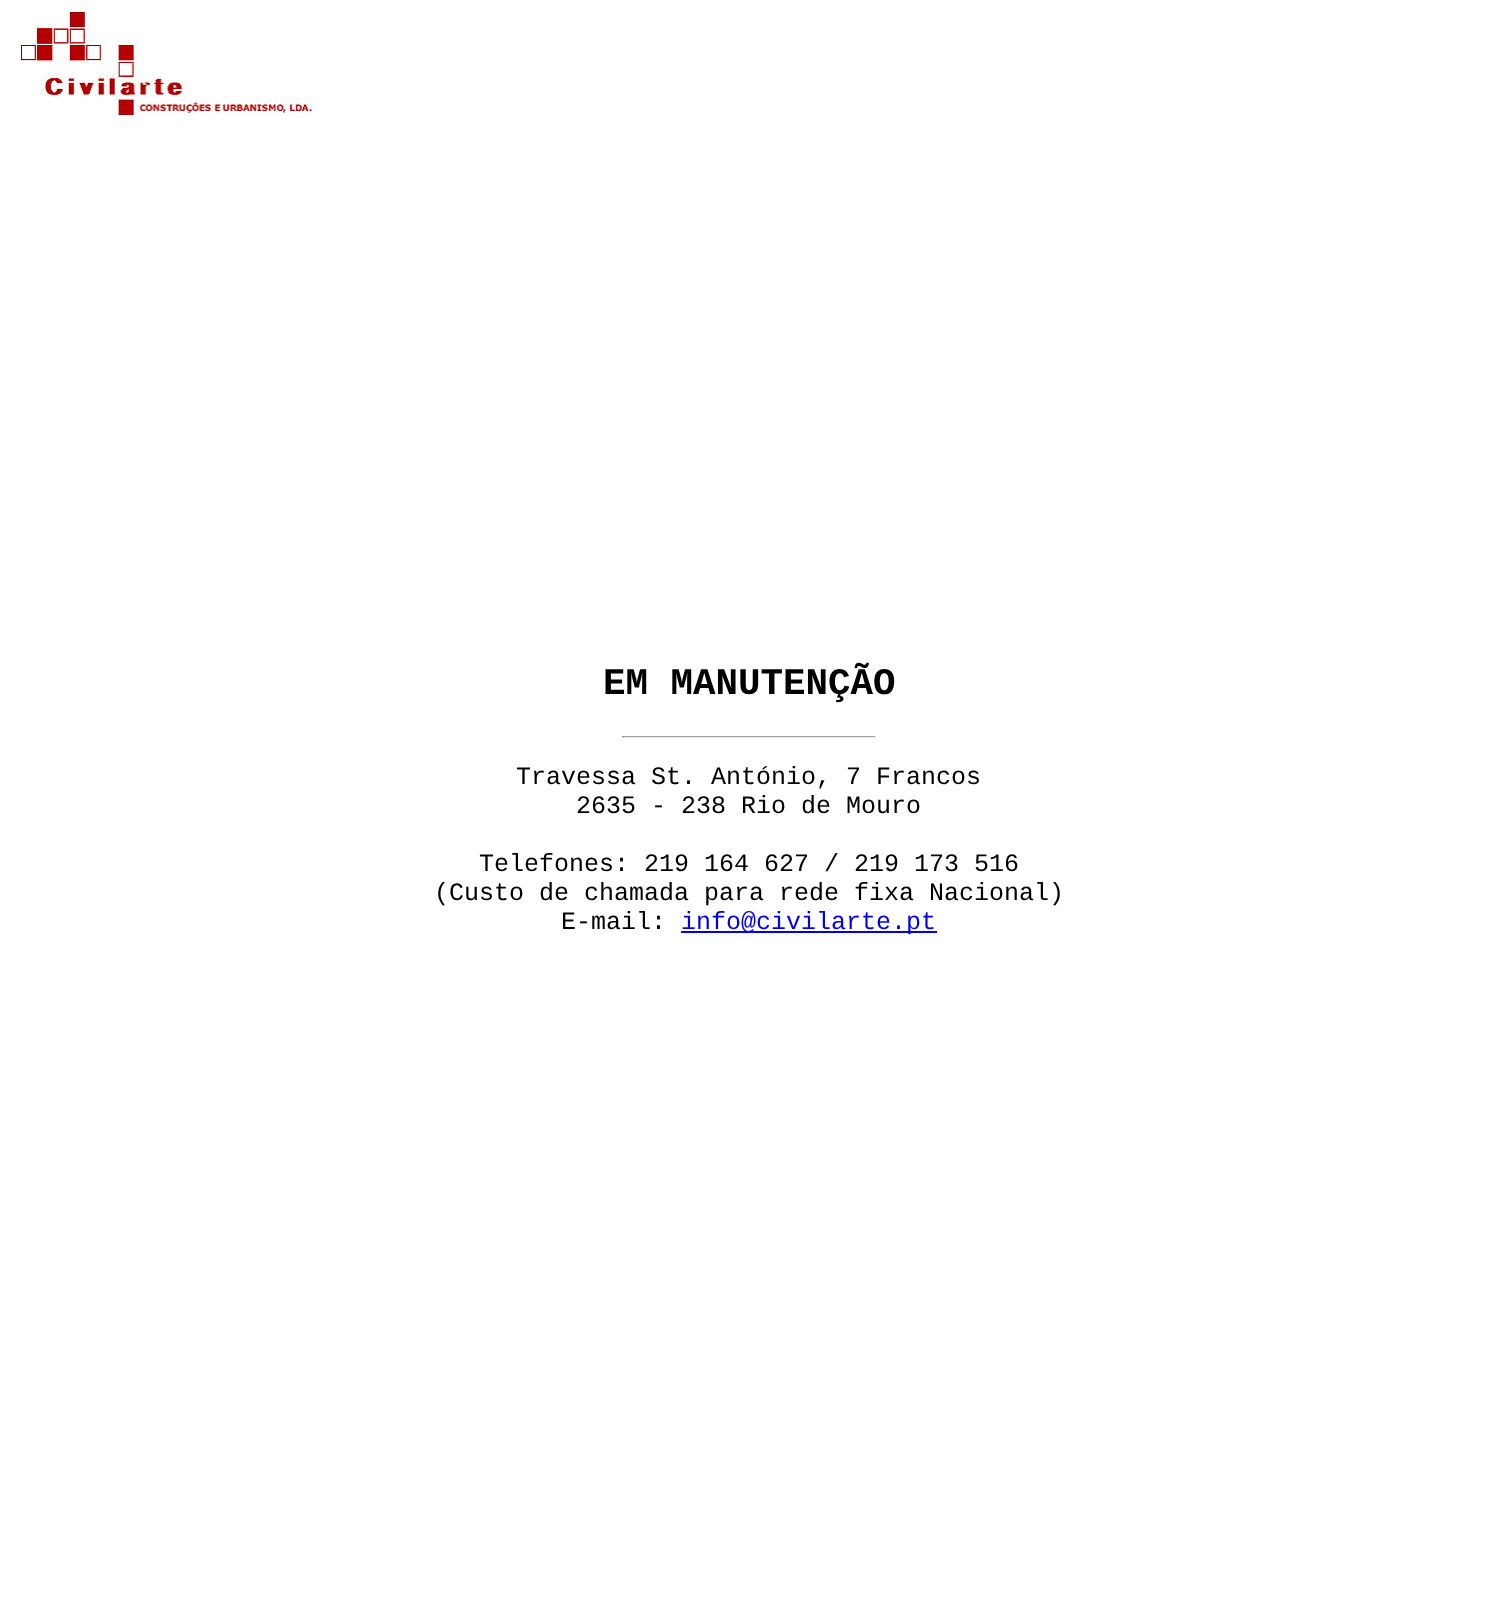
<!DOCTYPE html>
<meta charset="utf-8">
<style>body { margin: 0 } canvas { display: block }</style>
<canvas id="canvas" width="1498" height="1624"></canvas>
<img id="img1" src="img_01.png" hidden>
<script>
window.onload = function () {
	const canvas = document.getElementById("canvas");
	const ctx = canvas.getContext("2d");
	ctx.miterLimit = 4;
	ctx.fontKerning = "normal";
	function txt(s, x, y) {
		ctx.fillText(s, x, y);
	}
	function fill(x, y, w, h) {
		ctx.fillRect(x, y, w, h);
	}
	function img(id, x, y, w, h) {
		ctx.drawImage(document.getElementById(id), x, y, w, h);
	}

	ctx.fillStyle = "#FFFFFF";
	fill(0, 0, 1498, 1624);
	img("img1", 18, 8, 295, 112);
	ctx.fillStyle = "#9F9F9F";
	fill(622, 736, 254, 1);
	ctx.fillStyle = "#EEEEEE";
	fill(875, 736, 1, 2);
	fill(622, 737, 254, 1);
	ctx.fillStyle = "#9F9F9F";
	fill(622, 736, 1, 2);
	ctx.fillStyle = "#0000EE";
	fill(681, 931, 256, 2);
	ctx.font = "bold 37.5px Liberation Mono";
	ctx.fillStyle = "#000000";
	txt("EM MANUTENÇÃO", 603, 694);
	ctx.font = "25px Liberation Mono";
	txt("Travessa St. António, 7 Francos", 516, 784);
	txt("2635 - 238 Rio de Mouro", 576, 813);
	txt("Telefones: 219 164 627 / 219 173 516", 479, 871);
	txt("(Custo de chamada para rede fixa Nacional)", 434, 900);
	txt("E-mail:", 561, 929);
	ctx.fillStyle = "#0000EE";
	txt("info@civilarte.pt", 681, 929);
};
</script>
